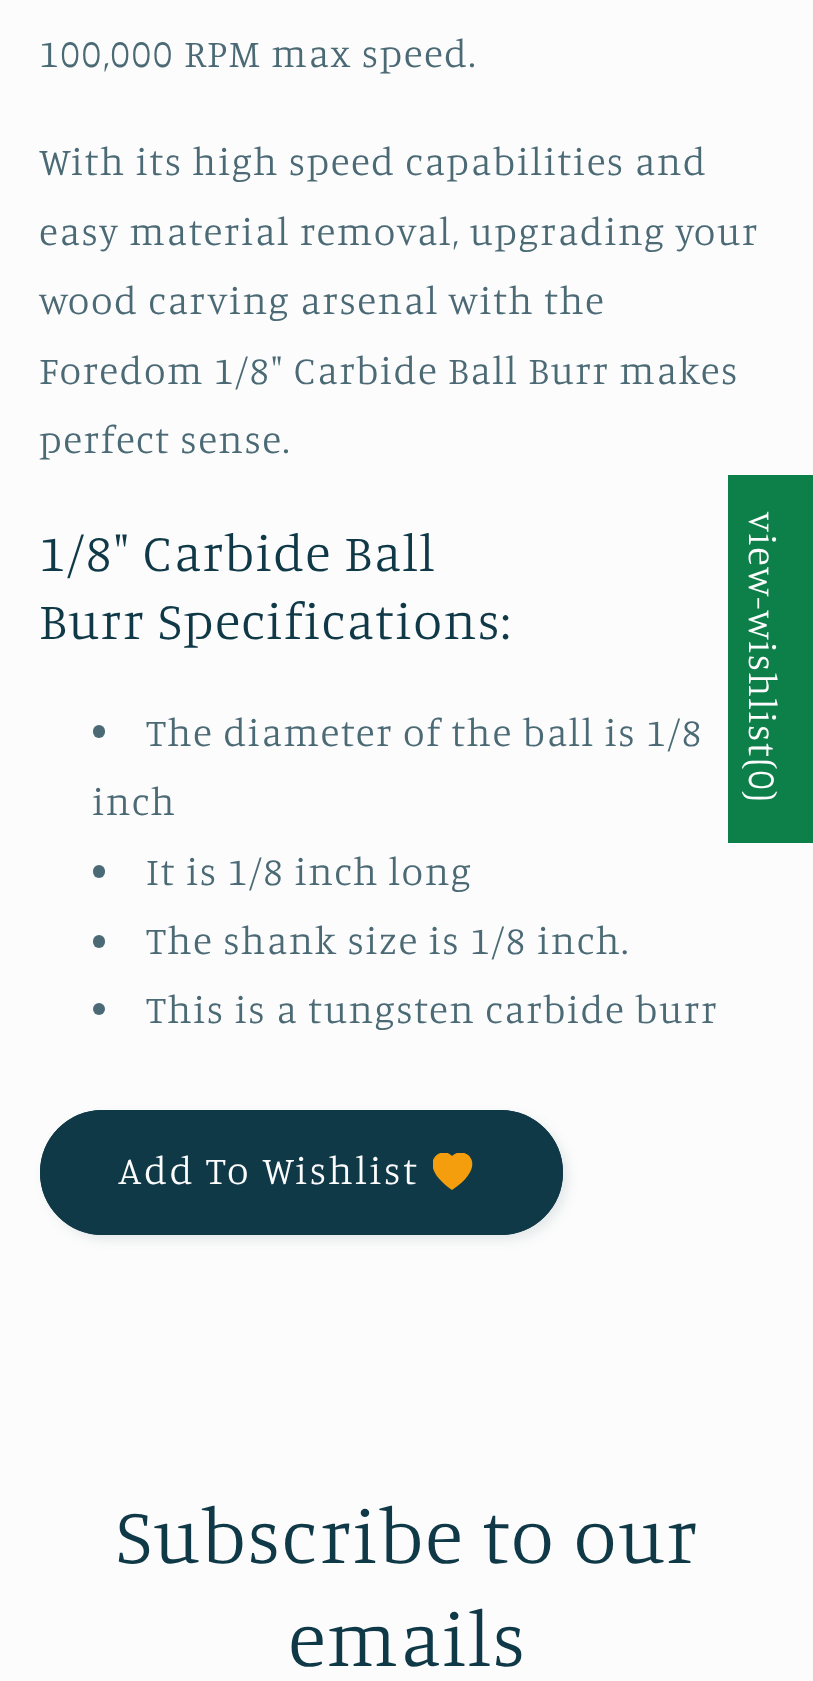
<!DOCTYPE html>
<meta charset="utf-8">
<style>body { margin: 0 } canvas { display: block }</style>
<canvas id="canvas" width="813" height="1681"></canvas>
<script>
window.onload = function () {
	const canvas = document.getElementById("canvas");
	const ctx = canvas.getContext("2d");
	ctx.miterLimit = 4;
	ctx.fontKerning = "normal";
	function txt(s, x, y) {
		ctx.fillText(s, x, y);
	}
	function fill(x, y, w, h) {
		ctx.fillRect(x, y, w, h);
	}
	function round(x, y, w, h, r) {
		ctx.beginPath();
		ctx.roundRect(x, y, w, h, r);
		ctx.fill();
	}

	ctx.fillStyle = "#FCFCFC";
	fill(0, 0, 813, 1681);
	ctx.fillStyle = "#4B6A75";
	round(93, 725, 12, 13, 6);
	round(93, 865, 12, 13, 6);
	round(93, 935, 12, 13, 6);
	ctx.beginPath();
	ctx.arc(99, 1009, 6, 0, Math.PI * 2);
	ctx.fill();
	ctx.fillStyle = "rgba(16, 57, 72, 0.1)";
	ctx.filter = "blur(6px)";
	ctx.beginPath();
	ctx.roundRect(45, 1115, 523, 125, 62.5);
	ctx.fill();
	ctx.filter = "none";
	ctx.fillStyle = "#103948";
	round(40, 1110, 523, 125, 62.5);
	ctx.save();
	ctx.beginPath();
	ctx.rect(433, 1153, 40, 40);
	ctx.clip();
	ctx.fillStyle = "#F49E0E";
	ctx.beginPath();
	ctx.moveTo(452, 1156);
	ctx.bezierCurveTo(464, 1144, 491, 1164, 452, 1190);
	ctx.bezierCurveTo(414, 1164, 441, 1144, 452, 1156);
	ctx.fill("evenodd");
	ctx.restore();
	ctx.beginPath();
	ctx.roundRect(41.5, 1111.5, 520, 122, 61);
	ctx.strokeStyle = "#103948";
	ctx.lineWidth = 3;
	ctx.stroke();
	ctx.fillStyle = "#0D7F49";
	fill(728, 475, 85, 368);
	ctx.letterSpacing = "1.55px";
	ctx.font = "300 39.4px Manuale";
	ctx.fillStyle = "#4B6A75";
	txt("100,000 RPM max speed.", 39, 67);
	txt("With its high speed capabilities and", 39, 175);
	txt("easy material removal, upgrading your", 39, 245);
	txt("wood carving arsenal with the", 39, 314);
	txt("Foredom 1/8\" Carbide Ball Burr makes", 39, 384);
	txt("perfect sense.", 39, 453);
	ctx.font = "300 52.5px Manuale";
	ctx.fillStyle = "#103948";
	txt("1/8\" Carbide Ball", 39, 571);
	txt("Burr Specifications:", 39, 639);
	ctx.font = "300 39.4px Manuale";
	ctx.fillStyle = "#4B6A75";
	txt("The diameter of the ball is 1/8", 146, 746);
	txt("inch", 92, 815);
	txt("It is 1/8 inch long", 146, 885);
	txt("The shank size is 1/8 inch.", 146, 954);
	txt("This is a tungsten carbide burr", 146, 1023);
	ctx.letterSpacing = "2.6px";
	ctx.fillStyle = "#FCFCFC";
	txt("Add To Wishlist", 118, 1184);
	ctx.letterSpacing = "1.55px";
	ctx.save();
	ctx.translate(749, 512);
	ctx.rotate(90 * Math.PI / 180);
	ctx.fillText("view-wishlist(0)", 0, 0);
	ctx.restore();
	ctx.font = "300 78.75px Manuale";
	ctx.fillStyle = "#103948";
	txt("Subscribe to our", 116, 1563);
	txt("emails", 288, 1666);
};
</script>
